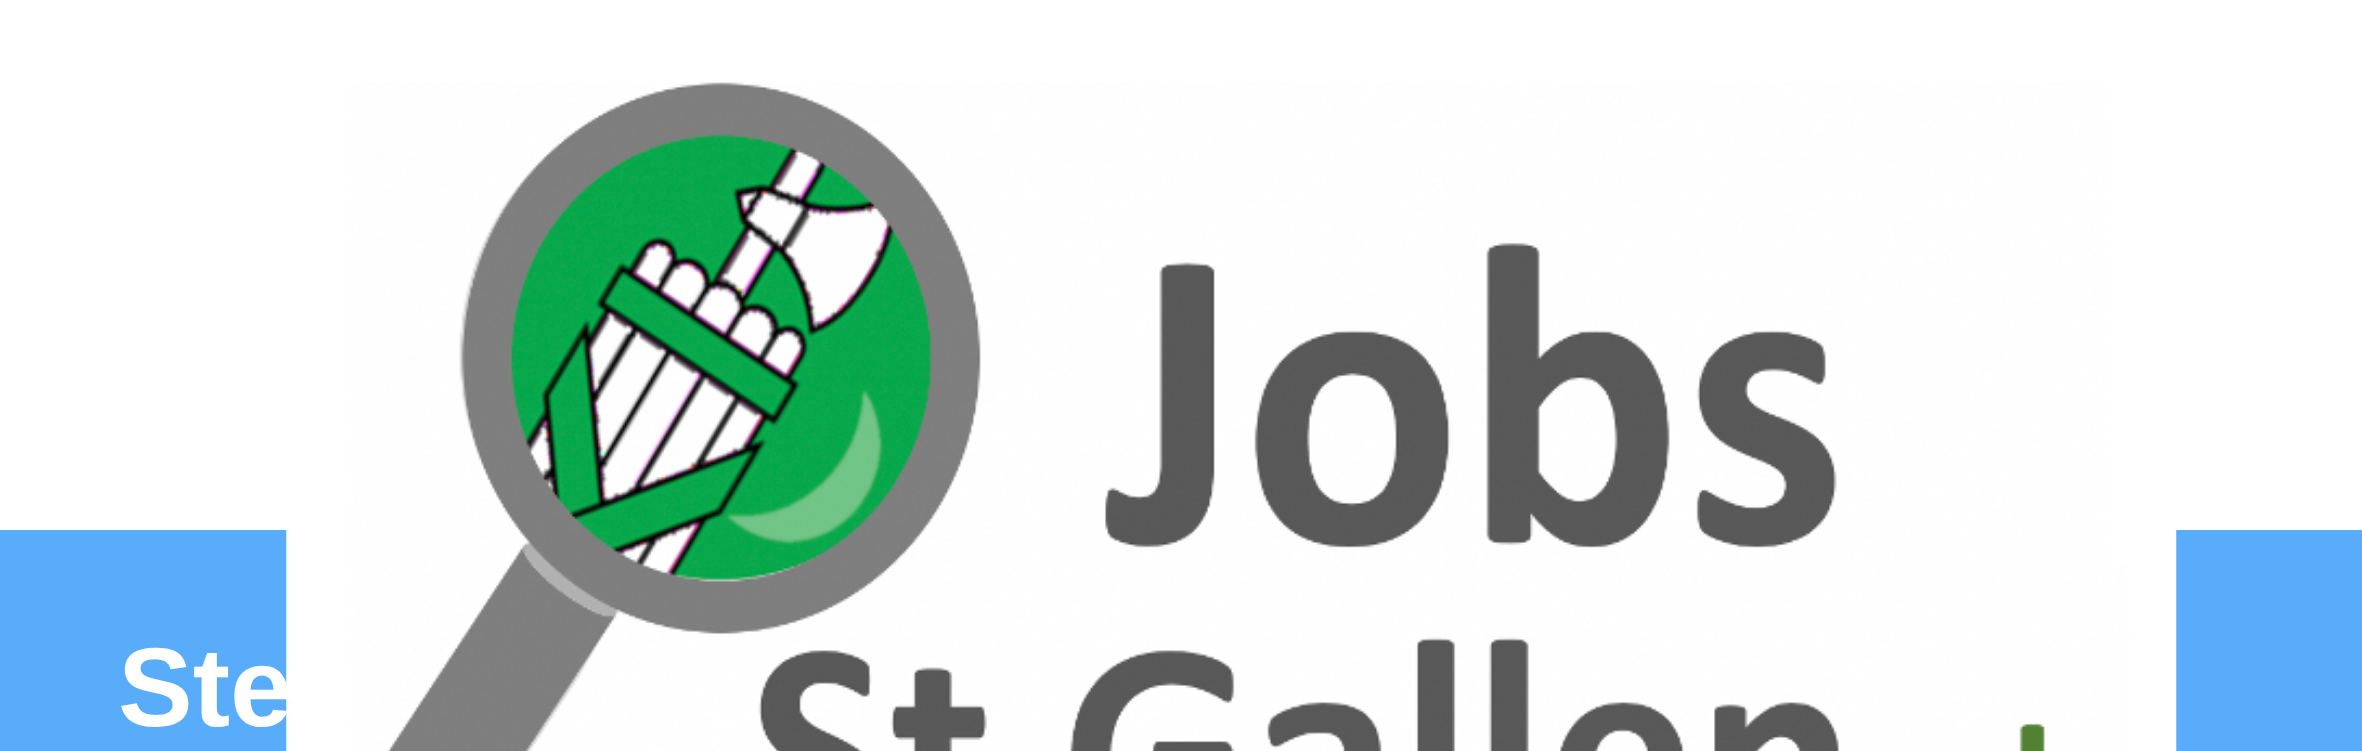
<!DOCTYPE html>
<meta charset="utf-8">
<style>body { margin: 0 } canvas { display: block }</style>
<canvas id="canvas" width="2362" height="751"></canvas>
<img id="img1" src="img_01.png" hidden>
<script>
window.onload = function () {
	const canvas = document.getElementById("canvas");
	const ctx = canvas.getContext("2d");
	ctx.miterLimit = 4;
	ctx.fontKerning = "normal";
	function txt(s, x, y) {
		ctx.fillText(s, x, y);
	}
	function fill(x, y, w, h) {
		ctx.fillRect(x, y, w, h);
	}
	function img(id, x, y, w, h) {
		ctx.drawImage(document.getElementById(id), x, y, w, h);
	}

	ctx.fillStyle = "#58ACFA";
	fill(0, 0, 2362, 751);
	ctx.fillStyle = "#FFFFFF";
	fill(0, 0, 2362, 530);
	img("img1", 286, 82, 1891, 669);
	ctx.font = "bold 112px Liberation Sans";
	txt("Ste", 118, 726);
};
</script>
